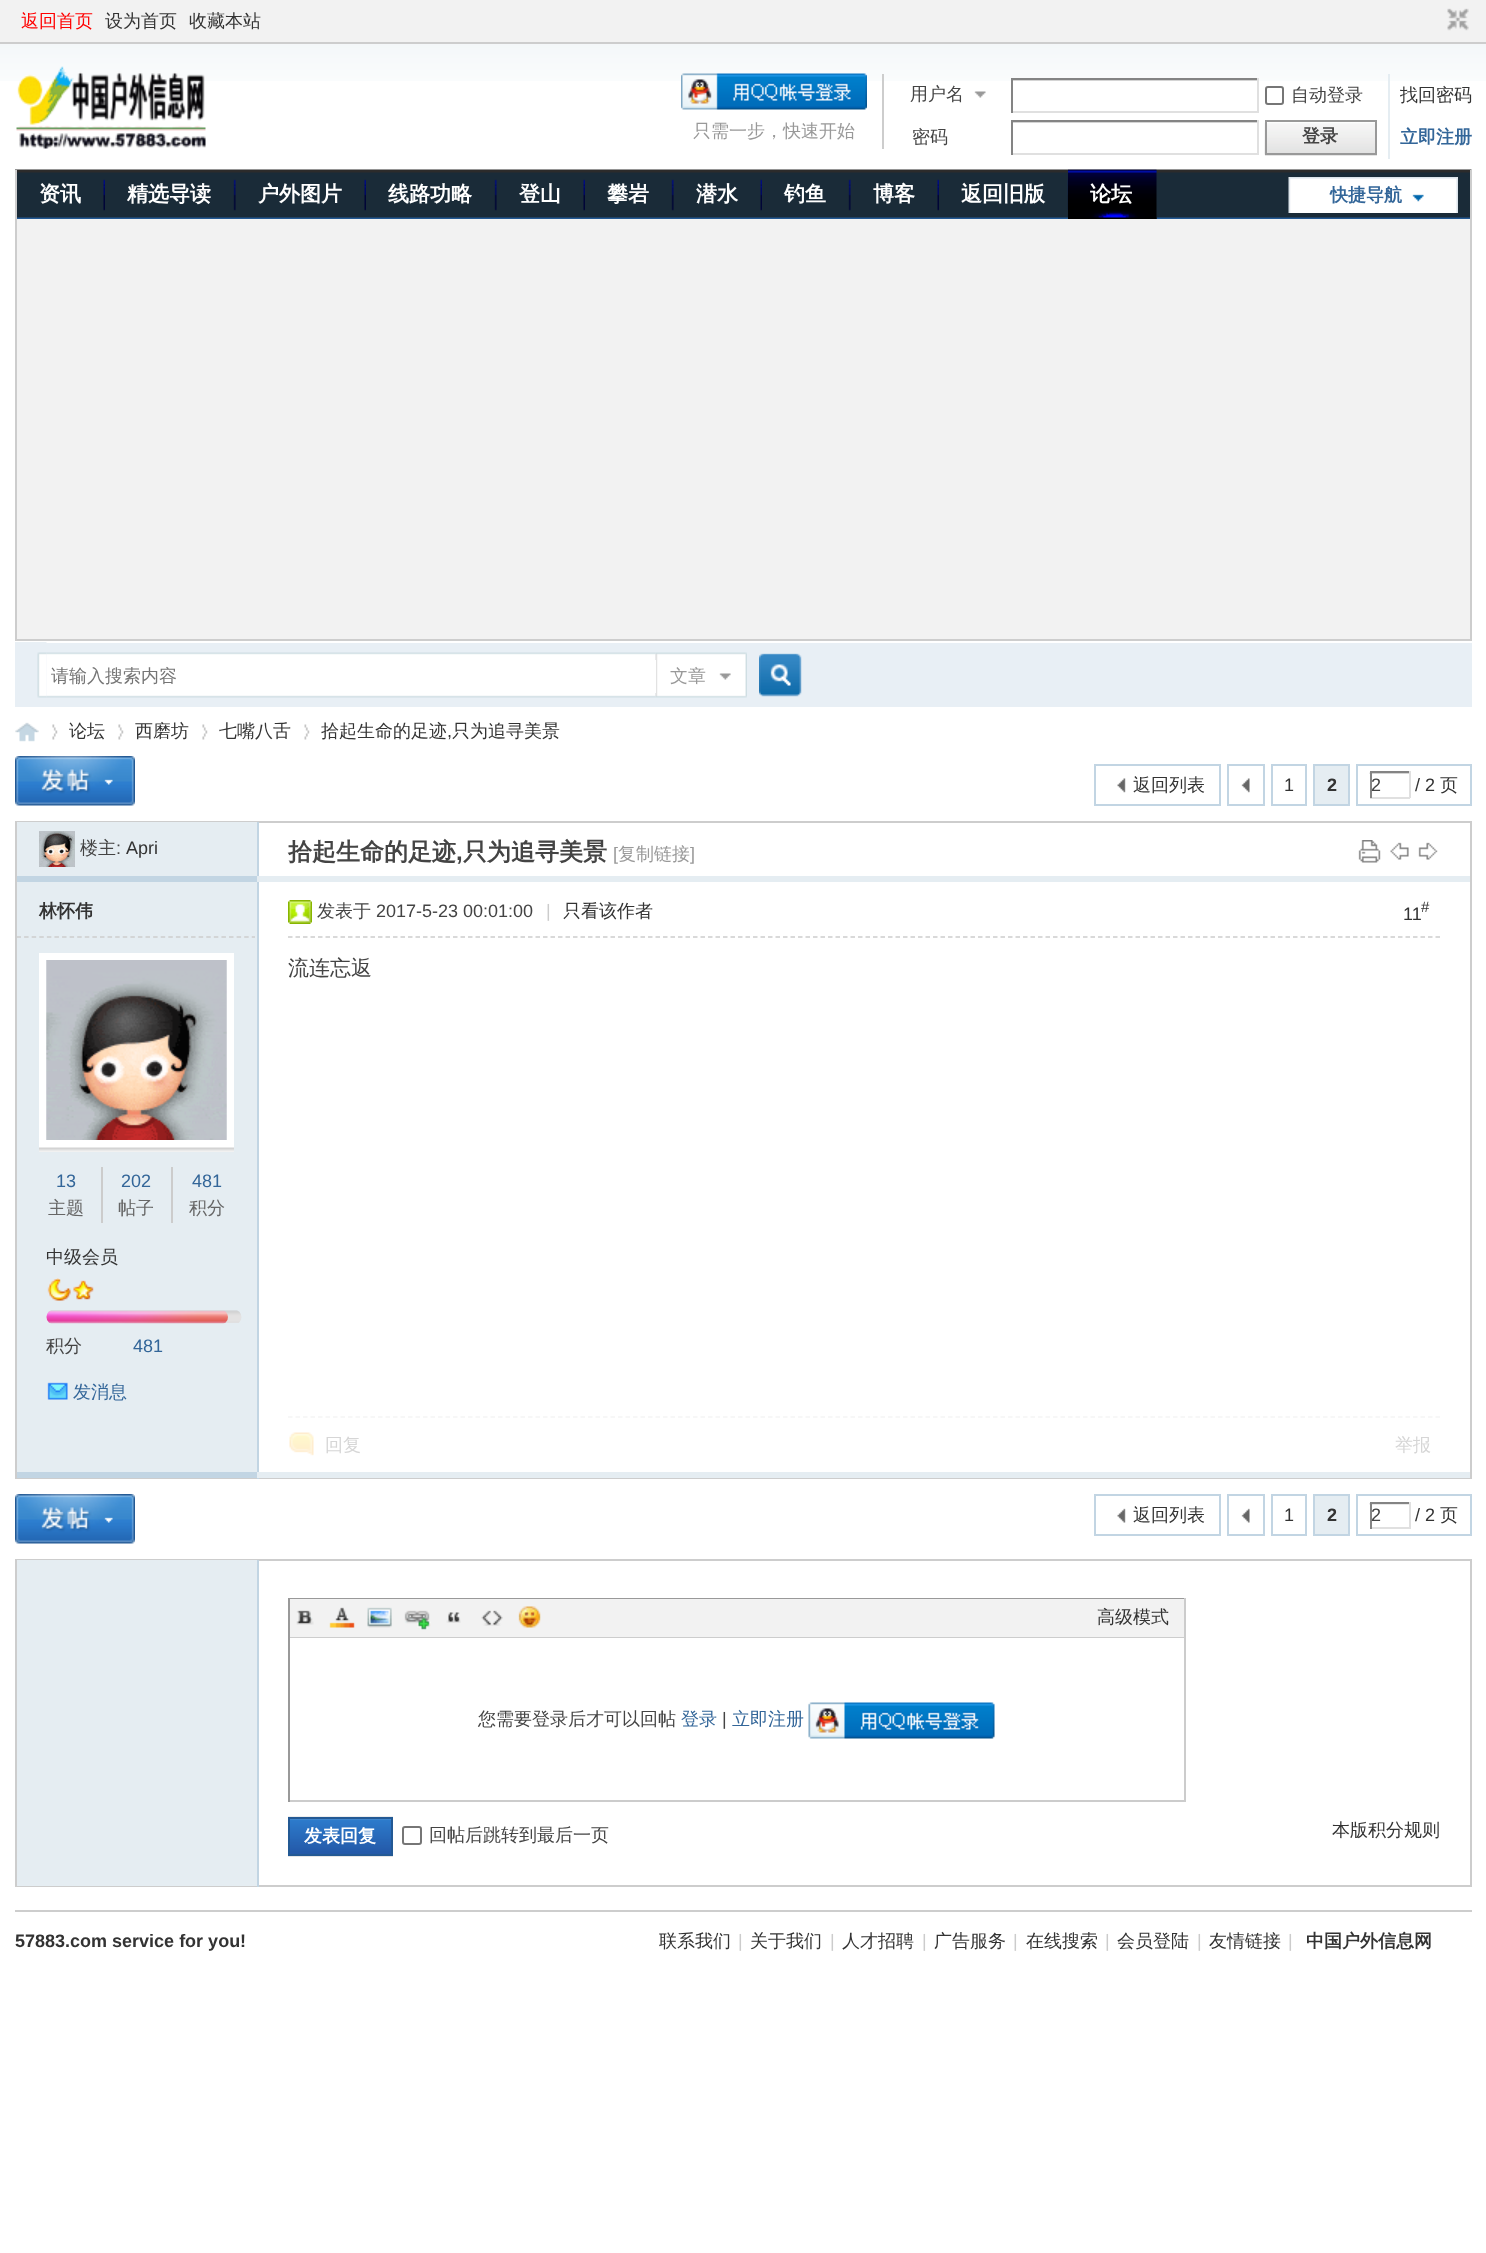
<!DOCTYPE html>
<meta charset="utf-8">
<style>body { margin: 0 } canvas { display: block }</style>
<canvas id="canvas" width="1486" height="2253"></canvas>
<img id="img1" src="img_01.png" hidden>
<img id="img2" src="img_02.png" hidden>
<img id="img3" src="img_03.png" hidden>
<img id="img4" src="img_04.png" hidden>
<img id="img5" src="img_05.png" hidden>
<img id="img6" src="img_06.png" hidden>
<img id="img7" src="img_07.png" hidden>
<img id="img8" src="img_08.png" hidden>
<img id="img9" src="img_09.png" hidden>
<img id="img10" src="img_10.png" hidden>
<img id="img11" src="img_11.png" hidden>
<img id="img12" src="img_12.png" hidden>
<img id="img13" src="img_13.png" hidden>
<img id="img14" src="img_14.png" hidden>
<img id="img15" src="img_15.png" hidden>
<img id="img16" src="img_16.png" hidden>
<img id="img17" src="img_17.png" hidden>
<img id="img18" src="img_18.png" hidden>
<img id="img19" src="img_19.png" hidden>
<img id="img20" src="img_20.png" hidden>
<img id="img21" src="img_21.png" hidden>
<img id="img22" src="img_22.png" hidden>
<img id="img23" src="img_23.png" hidden>
<img id="img24" src="img_24.png" hidden>
<img id="img25" src="img_25.png" hidden>
<img id="img26" src="img_26.png" hidden>
<img id="img27" src="img_27.png" hidden>
<img id="img28" src="img_28.png" hidden>
<img id="img29" src="img_29.png" hidden>
<img id="img30" src="img_30.png" hidden>
<img id="img31" src="img_31.png" hidden>
<img id="img32" src="img_32.png" hidden>
<img id="img33" src="img_33.png" hidden>
<img id="img34" src="img_34.png" hidden>
<img id="img35" src="img_35.png" hidden>
<img id="img36" src="img_36.png" hidden>
<img id="img37" src="img_37.png" hidden>
<img id="img38" src="img_38.png" hidden>
<img id="img39" src="img_39.png" hidden>
<img id="img40" src="img_40.png" hidden>
<img id="img41" src="img_41.png" hidden>
<img id="img42" src="img_42.png" hidden>
<img id="img43" src="img_43.png" hidden>
<img id="img44" src="img_44.png" hidden>
<img id="img45" src="img_45.png" hidden>
<img id="img46" src="img_46.png" hidden>
<img id="img47" src="img_47.png" hidden>
<img id="img48" src="img_48.png" hidden>
<img id="img49" src="img_49.png" hidden>
<img id="img50" src="img_50.png" hidden>
<script>
window.onload = function () {
	const canvas = document.getElementById("canvas");
	const ctx = canvas.getContext("2d");
	ctx.miterLimit = 4;
	ctx.fontKerning = "normal";
	function txt(s, x, y) {
		ctx.fillText(s, x, y);
	}
	function fill(x, y, w, h) {
		ctx.fillRect(x, y, w, h);
	}
	function img(id, x, y, w, h) {
		ctx.drawImage(document.getElementById(id), x, y, w, h);
	}

	ctx.fillStyle = "#FFFFFF";
	fill(0, 0, 1486, 2253);
	img("img1", 0, 44, 1486, 37);
	ctx.fillStyle = "#F2F2F2";
	fill(0, 0, 1486, 42);
	ctx.fillStyle = "#CDCDCD";
	fill(0, 42, 1486, 2);
	img("img2", 1447, 8, 22, 23);
	img("img3", 16, 66, 190, 83);
	fill(882, 74, 2, 75);
	img("img4", 681, 73, 186, 37);
	img("img5", 974, 91, 12, 7);
	img("img6", 1013, 80, 244, 1);
	ctx.fillStyle = "#848484";
	fill(1011, 78, 248, 2);
	ctx.fillStyle = "#E0E0E0";
	fill(1257, 78, 2, 35);
	fill(1011, 111, 248, 2);
	ctx.fillStyle = "#848484";
	fill(1011, 78, 2, 35);
	ctx.beginPath();
	ctx.roundRect(1266, 87, 17, 17, 2);
	ctx.strokeStyle = "#767676";
	ctx.lineWidth = 2;
	ctx.stroke();
	img("img6", 1013, 122, 244, 1);
	fill(1011, 120, 248, 2);
	ctx.fillStyle = "#E0E0E0";
	fill(1257, 120, 2, 35);
	fill(1011, 153, 248, 2);
	ctx.fillStyle = "#848484";
	fill(1011, 120, 2, 35);
	ctx.fillStyle = "#E5EDF2";
	fill(1388, 74, 2, 85);
	ctx.fillStyle = "#E5E5E5";
	fill(1265, 155, 112, 1);
	img("img7", 1264, 121, 111, 34);
	ctx.strokeStyle = "#999999";
	ctx.strokeRect(1266, 121, 110, 33);
	img("img8", 15, 169, 1457, 50);
	ctx.fillStyle = "#CDCDCD";
	fill(1470, 170, 2, 49);
	fill(15, 170, 2, 49);
	img("img9", 103, 179, 2, 32);
	img("img10", 233, 179, 3, 32);
	img("img9", 364, 179, 2, 32);
	img("img10", 494, 179, 3, 32);
	img("img9", 583, 179, 2, 32);
	img("img10", 671, 179, 3, 32);
	img("img11", 760, 179, 2, 32);
	img("img10", 848, 179, 3, 32);
	img("img9", 937, 179, 2, 32);
	img("img12", 1067, 180, 1, 30);
	ctx.fillStyle = "#1A2B38";
	fill(1156, 170, 1, 49);
	img("img13", 1068, 169, 89, 50);
	img("img14", 1288, 177, 170, 36);
	ctx.fillStyle = "#F2F2F2";
	fill(17, 219, 1453, 420);
	ctx.fillStyle = "#CDCDCD";
	fill(1470, 219, 2, 422);
	fill(15, 639, 1457, 2);
	fill(15, 219, 2, 422);
	ctx.fillStyle = "#E8EFF5";
	fill(15, 643, 1457, 64);
	img("img15", 15, 642, 32, 56);
	img("img16", 46, 652, 610, 46);
	img("img17", 655, 652, 92, 46);
	ctx.fillStyle = "#FFFFFF";
	fill(655, 660, 1, 33);
	img("img18", 759, 653, 43, 44);
	img("img19", 15, 722, 24, 20);
	img("img20", 52, 724, 6, 16);
	img("img20", 118, 724, 6, 16);
	img("img20", 202, 724, 6, 16);
	img("img21", 304, 724, 6, 16);
	img("img22", 15, 756, 120, 50);
	img("img23", 1117, 778, 9, 15);
	ctx.strokeStyle = "#C2D5E3";
	ctx.strokeRect(1095, 765, 125, 40);
	img("img24", 1241, 778, 9, 15);
	ctx.strokeRect(1228, 765, 36, 40);
	ctx.strokeRect(1272, 765, 34, 40);
	ctx.fillStyle = "#E5EDF2";
	ctx.beginPath();
	ctx.rect(1314, 765, 35, 40);
	ctx.fill();
	ctx.stroke();
	ctx.strokeRect(1357, 765, 114, 40);
	img("img25", 1369, 772, 40, 2);
	ctx.fillStyle = "#848484";
	fill(1370, 771, 40, 2);
	ctx.fillStyle = "#E0E0E0";
	fill(1409, 771, 2, 27);
	fill(1370, 797, 40, 2);
	ctx.fillStyle = "#848484";
	fill(1370, 771, 2, 27);
	ctx.strokeStyle = "#CDCDCD";
	ctx.strokeRect(16, 822, 1455, 656);
	ctx.fillStyle = "#C2D5E3";
	fill(257, 822, 2, 56);
	ctx.fillStyle = "#E5EDF2";
	fill(17, 822, 240, 54);
	img("img26", 39, 831, 36, 36);
	img("img27", 1358, 840, 23, 23);
	img("img28", 1390, 842, 19, 18);
	img("img29", 1418, 842, 20, 18);
	ctx.fillStyle = "#C2D5E3";
	fill(17, 876, 240, 6);
	ctx.fillStyle = "#E5EDF2";
	fill(257, 876, 1213, 6);
	ctx.fillStyle = "#C2D5E3";
	fill(257, 882, 2, 597);
	fill(17, 1472, 240, 6);
	ctx.fillStyle = "#E5EDF2";
	fill(257, 1472, 1213, 6);
	fill(17, 882, 240, 590);
	ctx.save();
	ctx.beginPath();
	ctx.rect(17, 882, 238, 534);
	ctx.clip();
	ctx.beginPath();
	ctx.moveTo(16.5, 937);
	ctx.lineTo(256.5, 937);
	ctx.lineWidth = 1.5;
	ctx.setLineDash([4.5, 3.09]);
	ctx.stroke();
	ctx.restore();
	ctx.fillStyle = "#FFFFFF";
	fill(39, 953, 195, 195);
	img("img30", 39, 960, 195, 192);
	img("img31", 46, 960, 181, 180);
	ctx.fillStyle = "#CCCCCC";
	fill(101, 1167, 2, 56);
	fill(171, 1167, 2, 56);
	img("img32", 47, 1278, 24, 23);
	img("img33", 73, 1280, 21, 20);
	img("img34", 46, 1310, 196, 13);
	img("img35", 46, 1310, 182, 14);
	img("img36", 47, 1382, 21, 18);
	ctx.beginPath();
	ctx.moveTo(288, 937);
	ctx.lineTo(1440, 937);
	ctx.lineWidth = 1.5;
	ctx.setLineDash([4.5, 3]);
	ctx.stroke();
	img("img37", 288, 900, 24, 24);
	ctx.beginPath();
	ctx.moveTo(288, 1417);
	ctx.lineTo(1440, 1417);
	ctx.strokeStyle = "#F5F5F5";
	ctx.stroke();
	img("img38", 289, 1432, 25, 24);
	img("img22", 15, 1494, 120, 50);
	img("img39", 1117, 1508, 9, 15);
	ctx.strokeStyle = "#C2D5E3";
	ctx.lineWidth = 2;
	ctx.setLineDash([]);
	ctx.strokeRect(1095, 1495, 125, 40);
	img("img40", 1241, 1508, 9, 15);
	ctx.strokeRect(1228, 1495, 36, 40);
	ctx.strokeRect(1272, 1495, 34, 40);
	ctx.fillStyle = "#E5EDF2";
	ctx.beginPath();
	ctx.rect(1314, 1495, 35, 40);
	ctx.fill();
	ctx.stroke();
	ctx.strokeRect(1357, 1495, 114, 40);
	img("img41", 1369, 1503, 40, 2);
	ctx.fillStyle = "#848484";
	fill(1370, 1502, 40, 2);
	ctx.fillStyle = "#E0E0E0";
	fill(1409, 1502, 2, 27);
	fill(1370, 1527, 40, 2);
	ctx.fillStyle = "#848484";
	fill(1370, 1502, 2, 27);
	ctx.strokeStyle = "#CDCDCD";
	ctx.strokeRect(16, 1560, 1455, 326);
	ctx.fillStyle = "#C2D5E3";
	fill(257, 1560, 2, 327);
	ctx.fillStyle = "#E5EDF2";
	fill(17, 1560, 240, 326);
	ctx.fillStyle = "#999999";
	fill(288, 1598, 897, 1);
	ctx.fillStyle = "#CCCCCC";
	fill(1184, 1598, 2, 204);
	fill(288, 1800, 897, 2);
	ctx.fillStyle = "#999999";
	fill(288, 1598, 2, 204);
	ctx.fillStyle = "#F2F2F2";
	fill(290, 1599, 894, 38);
	ctx.fillStyle = "#CDCDCD";
	fill(290, 1637, 894, 1);
	img("img42", 296, 1610, 18, 15);
	img("img43", 329, 1607, 26, 21);
	img("img44", 367, 1607, 25, 21);
	img("img45", 404, 1610, 27, 20);
	img("img46", 446, 1612, 15, 11);
	img("img47", 481, 1610, 22, 16);
	img("img48", 518, 1606, 23, 22);
	img("img49", 808, 1702, 187, 37);
	ctx.fillStyle = "#E5E5E5";
	fill(288, 1856, 105, 1);
	img("img50", 288, 1816, 105, 38);
	ctx.strokeStyle = "#235994";
	ctx.strokeRect(289, 1818, 103, 37);
	ctx.beginPath();
	ctx.roundRect(403, 1827, 18, 17, 2);
	ctx.strokeStyle = "#767676";
	ctx.stroke();
	ctx.fillStyle = "#CDCDCD";
	fill(15, 1910, 1457, 2);
	ctx.font = "500 18px WenQuanYi Zen Hei";
	ctx.fillStyle = "#FF0000";
	txt("返回首页", 21, 27);
	ctx.fillStyle = "#333333";
	txt("设为首页", 105, 27);
	txt("收藏本站", 189, 27);
	ctx.fillStyle = "#999999";
	txt("只需一步，快速开始", 693, 137);
	ctx.fillStyle = "#444444";
	txt("用户名", 910, 100);
	txt("自动登录", 1291, 101);
	ctx.fillStyle = "#333333";
	txt("找回密码", 1400, 101);
	ctx.fillStyle = "#444444";
	txt("密码", 912, 143);
	ctx.font = "bold 18px WenQuanYi Zen Hei";
	txt("登录", 1302, 142);
	ctx.fillStyle = "#336699";
	txt("立即注册", 1400, 143);
	ctx.font = "bold 21px WenQuanYi Zen Hei";
	ctx.fillStyle = "#FFFFFF";
	txt("资讯", 39, 201);
	txt("精选导读", 127, 201);
	txt("户外图片", 258, 201);
	txt("线路功略", 388, 201);
	txt("登山", 519, 201);
	txt("攀岩", 607, 201);
	txt("潜水", 696, 201);
	txt("钓鱼", 784, 201);
	txt("博客", 873, 201);
	txt("返回旧版", 961, 201);
	txt("论坛", 1090, 201);
	ctx.font = "bold 18px WenQuanYi Zen Hei";
	ctx.fillStyle = "#336699";
	txt("快捷导航", 1330, 201);
	ctx.font = "500 18px WenQuanYi Zen Hei";
	ctx.fillStyle = "#757575";
	txt("请输入搜索内容", 51, 682);
	ctx.fillStyle = "#999999";
	txt("文章", 670, 682);
	ctx.fillStyle = "#333333";
	txt("论坛", 69, 737);
	txt("西磨坊", 135, 737);
	txt("七嘴八舌", 219, 737);
	txt("拾起生命的足迹", 321, 737);
	ctx.font = "18px Liberation Sans";
	txt(",", 447, 737);
	ctx.font = "500 18px WenQuanYi Zen Hei";
	txt("只为追寻美景", 452, 737);
	txt("返回列表", 1133, 791);
	ctx.font = "18px Liberation Sans";
	txt("1", 1284, 791);
	ctx.font = "bold 18px Liberation Sans";
	txt("2", 1327, 791);
	ctx.font = "18px Liberation Sans";
	ctx.fillStyle = "#444444";
	txt("2", 1371, 791);
	ctx.fillStyle = "#333333";
	txt("/ 2", 1415, 791);
	ctx.font = "500 18px WenQuanYi Zen Hei";
	txt("页", 1440, 791);
	ctx.fillStyle = "#444444";
	txt("楼主", 80, 854);
	ctx.font = "18px Liberation Sans";
	txt(":", 116, 854);
	ctx.fillStyle = "#333333";
	txt("Apri", 126, 854);
	ctx.font = "bold 24px WenQuanYi Zen Hei";
	ctx.fillStyle = "#444444";
	txt("拾起生命的足迹", 288, 860);
	ctx.font = "bold 24px Liberation Sans";
	txt(",", 456, 860);
	ctx.font = "bold 24px WenQuanYi Zen Hei";
	txt("只为追寻美景", 463, 860);
	ctx.font = "18px Liberation Sans";
	ctx.fillStyle = "#999999";
	txt("[", 613, 860);
	ctx.font = "500 18px WenQuanYi Zen Hei";
	txt("复制链接", 618, 860);
	ctx.font = "18px Liberation Sans";
	txt("]", 690, 860);
	ctx.font = "bold 18px WenQuanYi Zen Hei";
	ctx.fillStyle = "#333333";
	txt("林怀伟", 39, 917);
	ctx.font = "18px Liberation Sans";
	ctx.fillStyle = "#336699";
	txt("13", 56, 1187);
	ctx.font = "500 18px WenQuanYi Zen Hei";
	ctx.fillStyle = "#666666";
	txt("主题", 48, 1214);
	ctx.font = "18px Liberation Sans";
	ctx.fillStyle = "#336699";
	txt("202", 121, 1187);
	ctx.font = "500 18px WenQuanYi Zen Hei";
	ctx.fillStyle = "#666666";
	txt("帖子", 118, 1214);
	ctx.font = "18px Liberation Sans";
	ctx.fillStyle = "#336699";
	txt("481", 192, 1187);
	ctx.font = "500 18px WenQuanYi Zen Hei";
	ctx.fillStyle = "#666666";
	txt("积分", 189, 1214);
	ctx.fillStyle = "#333333";
	txt("中级会员", 46, 1263);
	ctx.fillStyle = "#444444";
	txt("积分", 46, 1352);
	ctx.font = "18px Liberation Sans";
	ctx.fillStyle = "#336699";
	txt("481", 133, 1352);
	ctx.font = "500 18px WenQuanYi Zen Hei";
	txt("发消息", 73, 1398);
	ctx.fillStyle = "#444444";
	txt("发表于", 317, 917);
	ctx.font = "18px Liberation Sans";
	txt("2017-5-23 00:01:00", 376, 917);
	ctx.fillStyle = "#CCCCCC";
	txt("|", 546, 917);
	ctx.font = "500 18px WenQuanYi Zen Hei";
	ctx.fillStyle = "#333333";
	txt("只看该作者", 563, 917);
	ctx.font = "18px Liberation Sans";
	txt("11", 1403, 920);
	ctx.font = "15px Liberation Sans";
	txt("#", 1421, 912);
	ctx.font = "500 21px WenQuanYi Zen Hei";
	ctx.fillStyle = "#444444";
	txt("流连忘返", 288, 975);
	ctx.font = "500 18px WenQuanYi Zen Hei";
	ctx.fillStyle = "#D6D6D6";
	txt("回复", 325, 1451);
	txt("举报", 1395, 1451);
	ctx.fillStyle = "#333333";
	txt("返回列表", 1133, 1521);
	ctx.font = "18px Liberation Sans";
	txt("1", 1284, 1521);
	ctx.font = "bold 18px Liberation Sans";
	txt("2", 1327, 1521);
	ctx.font = "18px Liberation Sans";
	ctx.fillStyle = "#444444";
	txt("2", 1371, 1521);
	ctx.fillStyle = "#333333";
	txt("/ 2", 1415, 1521);
	ctx.font = "500 18px WenQuanYi Zen Hei";
	txt("页", 1440, 1521);
	txt("高级模式", 1097, 1623);
	ctx.fillStyle = "#444444";
	txt("您需要登录后才可以回帖", 478, 1725);
	ctx.fillStyle = "#336699";
	txt("登录", 681, 1725);
	ctx.font = "18px Liberation Sans";
	ctx.fillStyle = "#444444";
	txt("|", 722, 1725);
	ctx.font = "500 18px WenQuanYi Zen Hei";
	ctx.fillStyle = "#336699";
	txt("立即注册", 732, 1725);
	ctx.font = "bold 18px WenQuanYi Zen Hei";
	ctx.fillStyle = "#FFFFFF";
	txt("发表回复", 304, 1842);
	ctx.font = "500 18px WenQuanYi Zen Hei";
	ctx.fillStyle = "#444444";
	txt("回帖后跳转到最后一页", 429, 1841);
	ctx.fillStyle = "#333333";
	txt("本版积分规则", 1332, 1836);
	ctx.font = "bold 18px Liberation Sans";
	txt("57883.com service for you!", 15, 1947);
	ctx.font = "500 18px WenQuanYi Zen Hei";
	txt("联系我们", 659, 1947);
	ctx.font = "18px Liberation Sans";
	ctx.fillStyle = "#CCCCCC";
	txt("|", 738, 1947);
	ctx.font = "500 18px WenQuanYi Zen Hei";
	ctx.fillStyle = "#333333";
	txt("关于我们", 750, 1947);
	ctx.font = "18px Liberation Sans";
	ctx.fillStyle = "#CCCCCC";
	txt("|", 830, 1947);
	ctx.font = "500 18px WenQuanYi Zen Hei";
	ctx.fillStyle = "#333333";
	txt("人才招聘", 842, 1947);
	ctx.font = "18px Liberation Sans";
	ctx.fillStyle = "#CCCCCC";
	txt("|", 922, 1947);
	ctx.font = "500 18px WenQuanYi Zen Hei";
	ctx.fillStyle = "#333333";
	txt("广告服务", 934, 1947);
	ctx.font = "18px Liberation Sans";
	ctx.fillStyle = "#CCCCCC";
	txt("|", 1013, 1947);
	ctx.font = "500 18px WenQuanYi Zen Hei";
	ctx.fillStyle = "#333333";
	txt("在线搜索", 1026, 1947);
	ctx.font = "18px Liberation Sans";
	ctx.fillStyle = "#CCCCCC";
	txt("|", 1105, 1947);
	ctx.font = "500 18px WenQuanYi Zen Hei";
	ctx.fillStyle = "#333333";
	txt("会员登陆", 1117, 1947);
	ctx.font = "18px Liberation Sans";
	ctx.fillStyle = "#CCCCCC";
	txt("|", 1197, 1947);
	ctx.font = "500 18px WenQuanYi Zen Hei";
	ctx.fillStyle = "#333333";
	txt("友情链接", 1209, 1947);
	ctx.font = "18px Liberation Sans";
	ctx.fillStyle = "#CCCCCC";
	txt("|", 1288, 1947);
	ctx.font = "bold 18px WenQuanYi Zen Hei";
	ctx.fillStyle = "#333333";
	txt("中国户外信息网", 1306, 1947);
};
</script>
